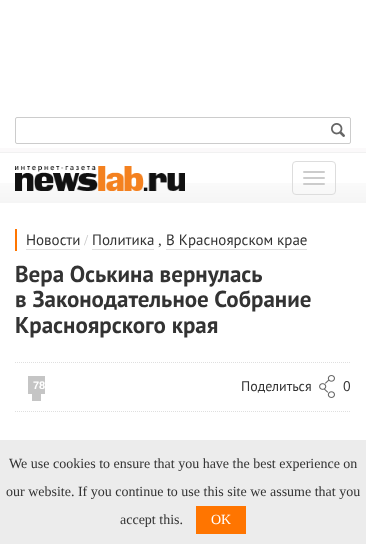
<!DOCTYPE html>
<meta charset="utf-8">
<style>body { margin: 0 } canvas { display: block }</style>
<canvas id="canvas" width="366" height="544"></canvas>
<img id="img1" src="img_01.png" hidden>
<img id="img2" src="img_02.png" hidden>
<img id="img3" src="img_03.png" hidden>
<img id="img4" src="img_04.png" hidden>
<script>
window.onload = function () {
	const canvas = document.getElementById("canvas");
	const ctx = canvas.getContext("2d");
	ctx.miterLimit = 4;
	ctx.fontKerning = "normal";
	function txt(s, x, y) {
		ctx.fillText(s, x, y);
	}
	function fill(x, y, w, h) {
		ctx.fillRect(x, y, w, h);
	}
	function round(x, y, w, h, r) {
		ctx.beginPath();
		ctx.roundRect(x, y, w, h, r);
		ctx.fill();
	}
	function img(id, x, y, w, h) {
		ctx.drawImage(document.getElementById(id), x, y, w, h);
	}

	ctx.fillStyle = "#FFFFFF";
	fill(0, 0, 366, 544);
	ctx.fillStyle = "#FBF9FA";
	fill(0, 148, 366, 4);
	ctx.beginPath();
	ctx.roundRect(15.5, 117.5, 335, 26, 1.5);
	ctx.strokeStyle = "#CCCCCC";
	ctx.stroke();
	img("img1", 331, 123, 14, 14);
	img("img2", 0, 183, 366, 20);
	ctx.fillStyle = "#F1F1F1";
	fill(0, 152, 366, 1);
	img("img3", 15, 166, 170, 25);
	ctx.beginPath();
	ctx.roundRect(292.5, 161.5, 43, 33, 3.5);
	ctx.strokeStyle = "#DDDDDD";
	ctx.stroke();
	ctx.fillStyle = "#CCCCCC";
	round(303, 171, 22, 2, 1);
	round(303, 177, 22, 2, 1);
	round(303, 183, 22, 2, 1);
	ctx.fillStyle = "#FF7500";
	fill(15, 229, 2, 22);
	ctx.fillStyle = "#E0E0E0";
	fill(26, 249, 54, 1);
	fill(92, 249, 62, 1);
	fill(166, 249, 141, 1);
	ctx.beginPath();
	ctx.moveTo(15, 362.5);
	ctx.lineTo(351, 362.5);
	ctx.strokeStyle = "#DFDFDF";
	ctx.setLineDash([1, 1]);
	ctx.stroke();
	ctx.beginPath();
	ctx.moveTo(15, 411.5);
	ctx.lineTo(351, 411.5);
	ctx.stroke();
	ctx.fillStyle = "#C5C5C5";
	fill(28, 376, 17, 18);
	fill(32, 394, 9, 7);
	img("img4", 319, 375, 16, 23);
	ctx.fillStyle = "#ECECEC";
	fill(0, 440, 366, 104);
	ctx.fillStyle = "#FF7500";
	fill(196, 506, 50, 28);
	ctx.font = "15px PT Sans";
	ctx.fillStyle = "#333333";
	txt("Новости", 26, 245);
	ctx.font = "15px Liberation Serif";
	ctx.fillStyle = "#C5C5C5";
	txt("/", 84, 245);
	ctx.font = "15px PT Sans";
	ctx.fillStyle = "#333333";
	txt("Политика", 92, 245);
	ctx.font = "15px Liberation Serif";
	txt(",", 158, 245);
	ctx.font = "15px PT Sans";
	txt("В Красноярском крае", 166, 245);
	ctx.font = "bold 23px PT Sans";
	txt("Вера Оськина вернулась", 15, 282);
	txt("в Законодательное Собрание", 15, 307);
	txt("Красноярского края", 15, 333);
	ctx.font = "bold 11px Liberation Sans";
	ctx.fillStyle = "#FFFFFF";
	txt("78", 33, 389);
	ctx.font = "14px PT Sans";
	ctx.fillStyle = "#333333";
	txt("Поделиться", 241, 391);
	txt("0", 343, 391);
	ctx.font = "14px Liberation Serif";
	txt("We use cookies to ensure that you have the best experience on", 9, 468);
	txt("our website. If you continue to use this site we assume that you", 6, 496);
	txt("accept this.", 120, 524);
	ctx.fillStyle = "#FFFFFF";
	txt("OK", 211, 524);
};
</script>
